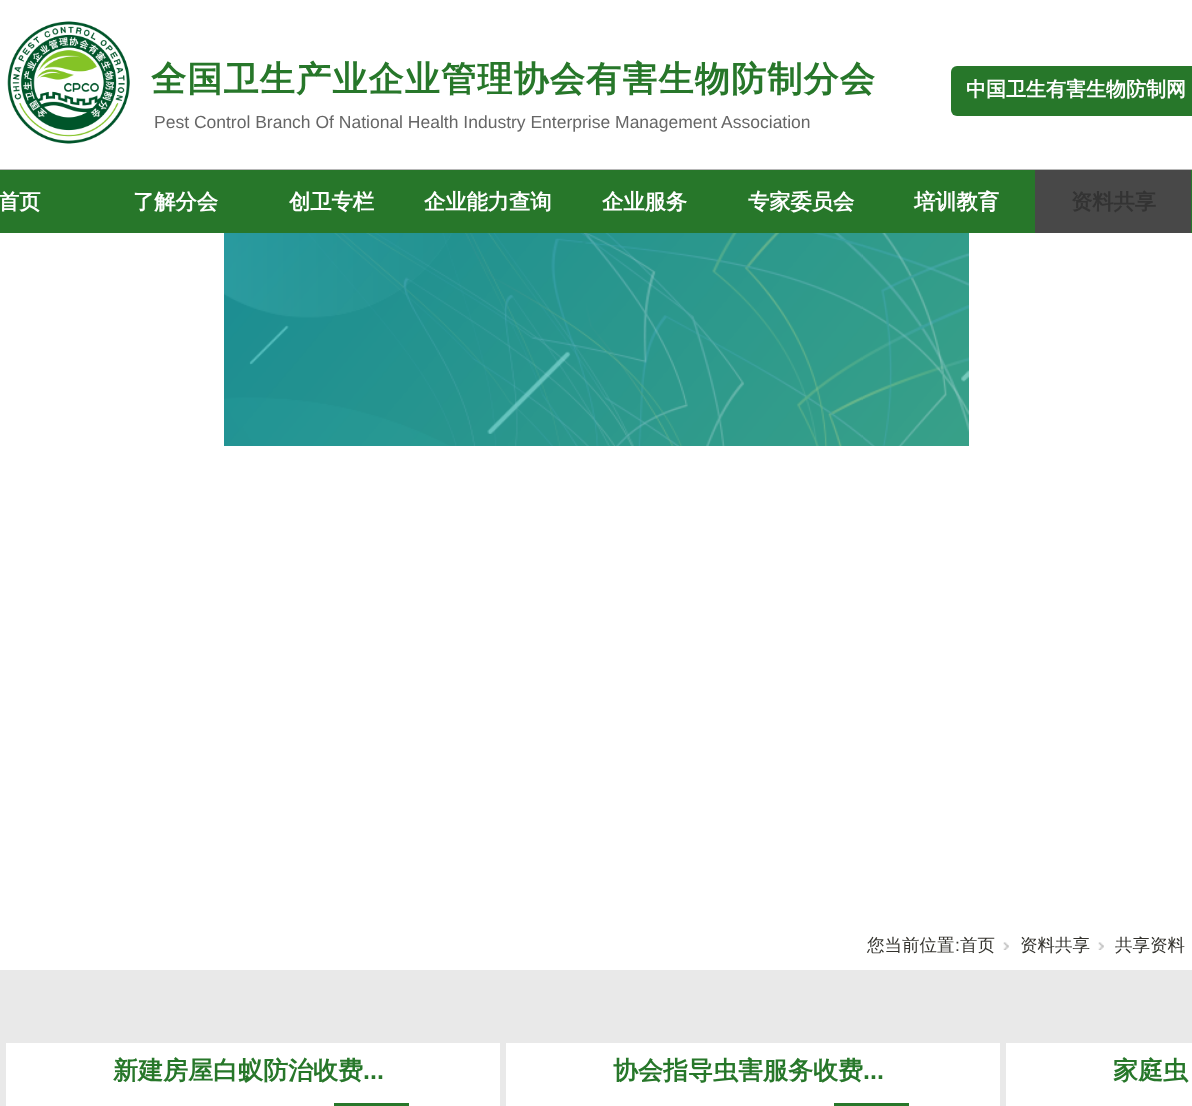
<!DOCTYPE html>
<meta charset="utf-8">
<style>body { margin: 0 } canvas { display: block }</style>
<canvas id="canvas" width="1192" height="1106"></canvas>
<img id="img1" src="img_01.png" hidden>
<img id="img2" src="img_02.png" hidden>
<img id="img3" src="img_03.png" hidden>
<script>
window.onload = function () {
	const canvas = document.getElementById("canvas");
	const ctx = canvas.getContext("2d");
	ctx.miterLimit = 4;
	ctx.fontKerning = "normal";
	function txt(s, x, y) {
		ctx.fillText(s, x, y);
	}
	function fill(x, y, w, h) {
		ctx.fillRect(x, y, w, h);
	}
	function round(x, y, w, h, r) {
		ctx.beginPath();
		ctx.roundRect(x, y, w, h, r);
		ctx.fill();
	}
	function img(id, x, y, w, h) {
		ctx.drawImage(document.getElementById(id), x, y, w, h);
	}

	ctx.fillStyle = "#FFFFFF";
	fill(0, 0, 1192, 1106);
	img("img1", 7, 21, 123, 123);
	ctx.fillStyle = "#27772A";
	round(951, 66, 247, 50, 6);
	fill(0, 170, 1192, 63);
	ctx.fillStyle = "#B7B7B7";
	fill(0, 169, 1192, 1);
	ctx.fillStyle = "#484848";
	fill(1035, 170, 156, 63);
	img("img2", 224, 233, 745, 213);
	img("img3", 1003, 942, 6, 8);
	img("img3", 1098, 942, 6, 8);
	ctx.fillStyle = "#E9E9E9";
	fill(0, 970, 1192, 136);
	ctx.fillStyle = "#FFFFFF";
	fill(6, 1043, 494, 63);
	ctx.fillStyle = "#27772A";
	fill(334, 1103, 75, 3);
	ctx.fillStyle = "#FFFFFF";
	fill(506, 1043, 494, 63);
	ctx.fillStyle = "#27772A";
	fill(834, 1103, 75, 3);
	ctx.fillStyle = "#FFFFFF";
	fill(1006, 1043, 186, 63);
	ctx.letterSpacing = "1.25px";
	ctx.font = "bold 35px WenQuanYi Zen Hei";
	ctx.fillStyle = "#27772A";
	txt("全国卫生产业企业管理协会有害生物防制分会", 151, 91);
	ctx.letterSpacing = "0px";
	ctx.font = "bold 20px WenQuanYi Zen Hei";
	ctx.fillStyle = "#FFFFFF";
	txt("中国卫生有害生物防制网", 966, 96);
	ctx.font = "17.5px Liberation Sans";
	ctx.fillStyle = "#666666";
	txt("Pest Control Branch Of National Health Industry Enterprise Management Association", 154, 128);
	ctx.font = "bold 21.25px WenQuanYi Zen Hei";
	ctx.fillStyle = "#FFFFFF";
	txt("首页", -2, 209);
	txt("了解分会", 133, 209);
	txt("创卫专栏", 289, 209);
	txt("企业能力查询", 424, 209);
	txt("企业服务", 602, 209);
	txt("专家委员会", 748, 209);
	txt("培训教育", 914, 209);
	ctx.fillStyle = "#333333";
	txt("资料共享", 1071, 209);
	ctx.font = "500 17.5px WenQuanYi Zen Hei";
	ctx.fillStyle = "#33322D";
	txt("您当前位置", 867, 951);
	ctx.font = "17.5px Liberation Sans";
	txt(":", 955, 951);
	ctx.font = "500 17.5px WenQuanYi Zen Hei";
	txt("首页", 960, 951);
	txt("资料共享", 1020, 951);
	txt("共享资料", 1115, 951);
	ctx.font = "bold 25px WenQuanYi Zen Hei";
	ctx.fillStyle = "#27772A";
	txt("新建房屋白蚁防治收费", 113, 1079);
	ctx.font = "bold 25px Liberation Sans";
	txt("...", 363, 1079);
	ctx.font = "bold 25px WenQuanYi Zen Hei";
	txt("协会指导虫害服务收费", 613, 1079);
	ctx.font = "bold 25px Liberation Sans";
	txt("...", 863, 1079);
	ctx.font = "bold 25px WenQuanYi Zen Hei";
	txt("家庭虫", 1113, 1079);
};
</script>
